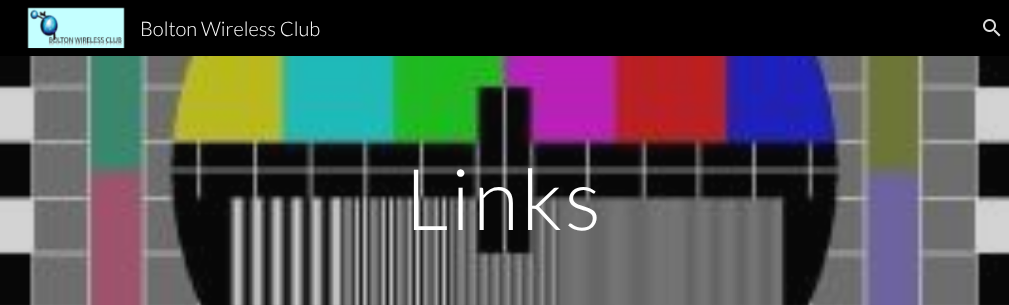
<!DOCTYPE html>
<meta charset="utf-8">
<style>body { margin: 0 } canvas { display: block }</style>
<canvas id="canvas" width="1009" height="305"></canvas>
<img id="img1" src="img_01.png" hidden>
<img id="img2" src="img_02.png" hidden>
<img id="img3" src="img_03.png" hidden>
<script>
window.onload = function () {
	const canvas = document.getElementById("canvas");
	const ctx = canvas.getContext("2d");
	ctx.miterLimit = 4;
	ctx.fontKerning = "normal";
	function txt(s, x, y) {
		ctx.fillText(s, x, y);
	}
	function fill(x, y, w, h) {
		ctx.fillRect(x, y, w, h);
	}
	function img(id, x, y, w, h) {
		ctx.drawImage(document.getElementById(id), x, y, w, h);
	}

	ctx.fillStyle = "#FFFFFF";
	fill(0, 0, 1009, 305);
	ctx.fillStyle = "#000000";
	fill(0, 0, 1009, 56);
	img("img1", 27, 7, 98, 42);
	img("img2", 983, 19, 18, 18);
	img("img3", 0, 56, 1009, 249);
	ctx.font = "300 20px Lato";
	ctx.fillStyle = "#FFFFFF";
	txt("Bolton Wireless Club", 140, 36);
	ctx.letterSpacing = "2px";
	ctx.font = "300 85px Lato";
	txt("Links", 405, 230);
};
</script>
